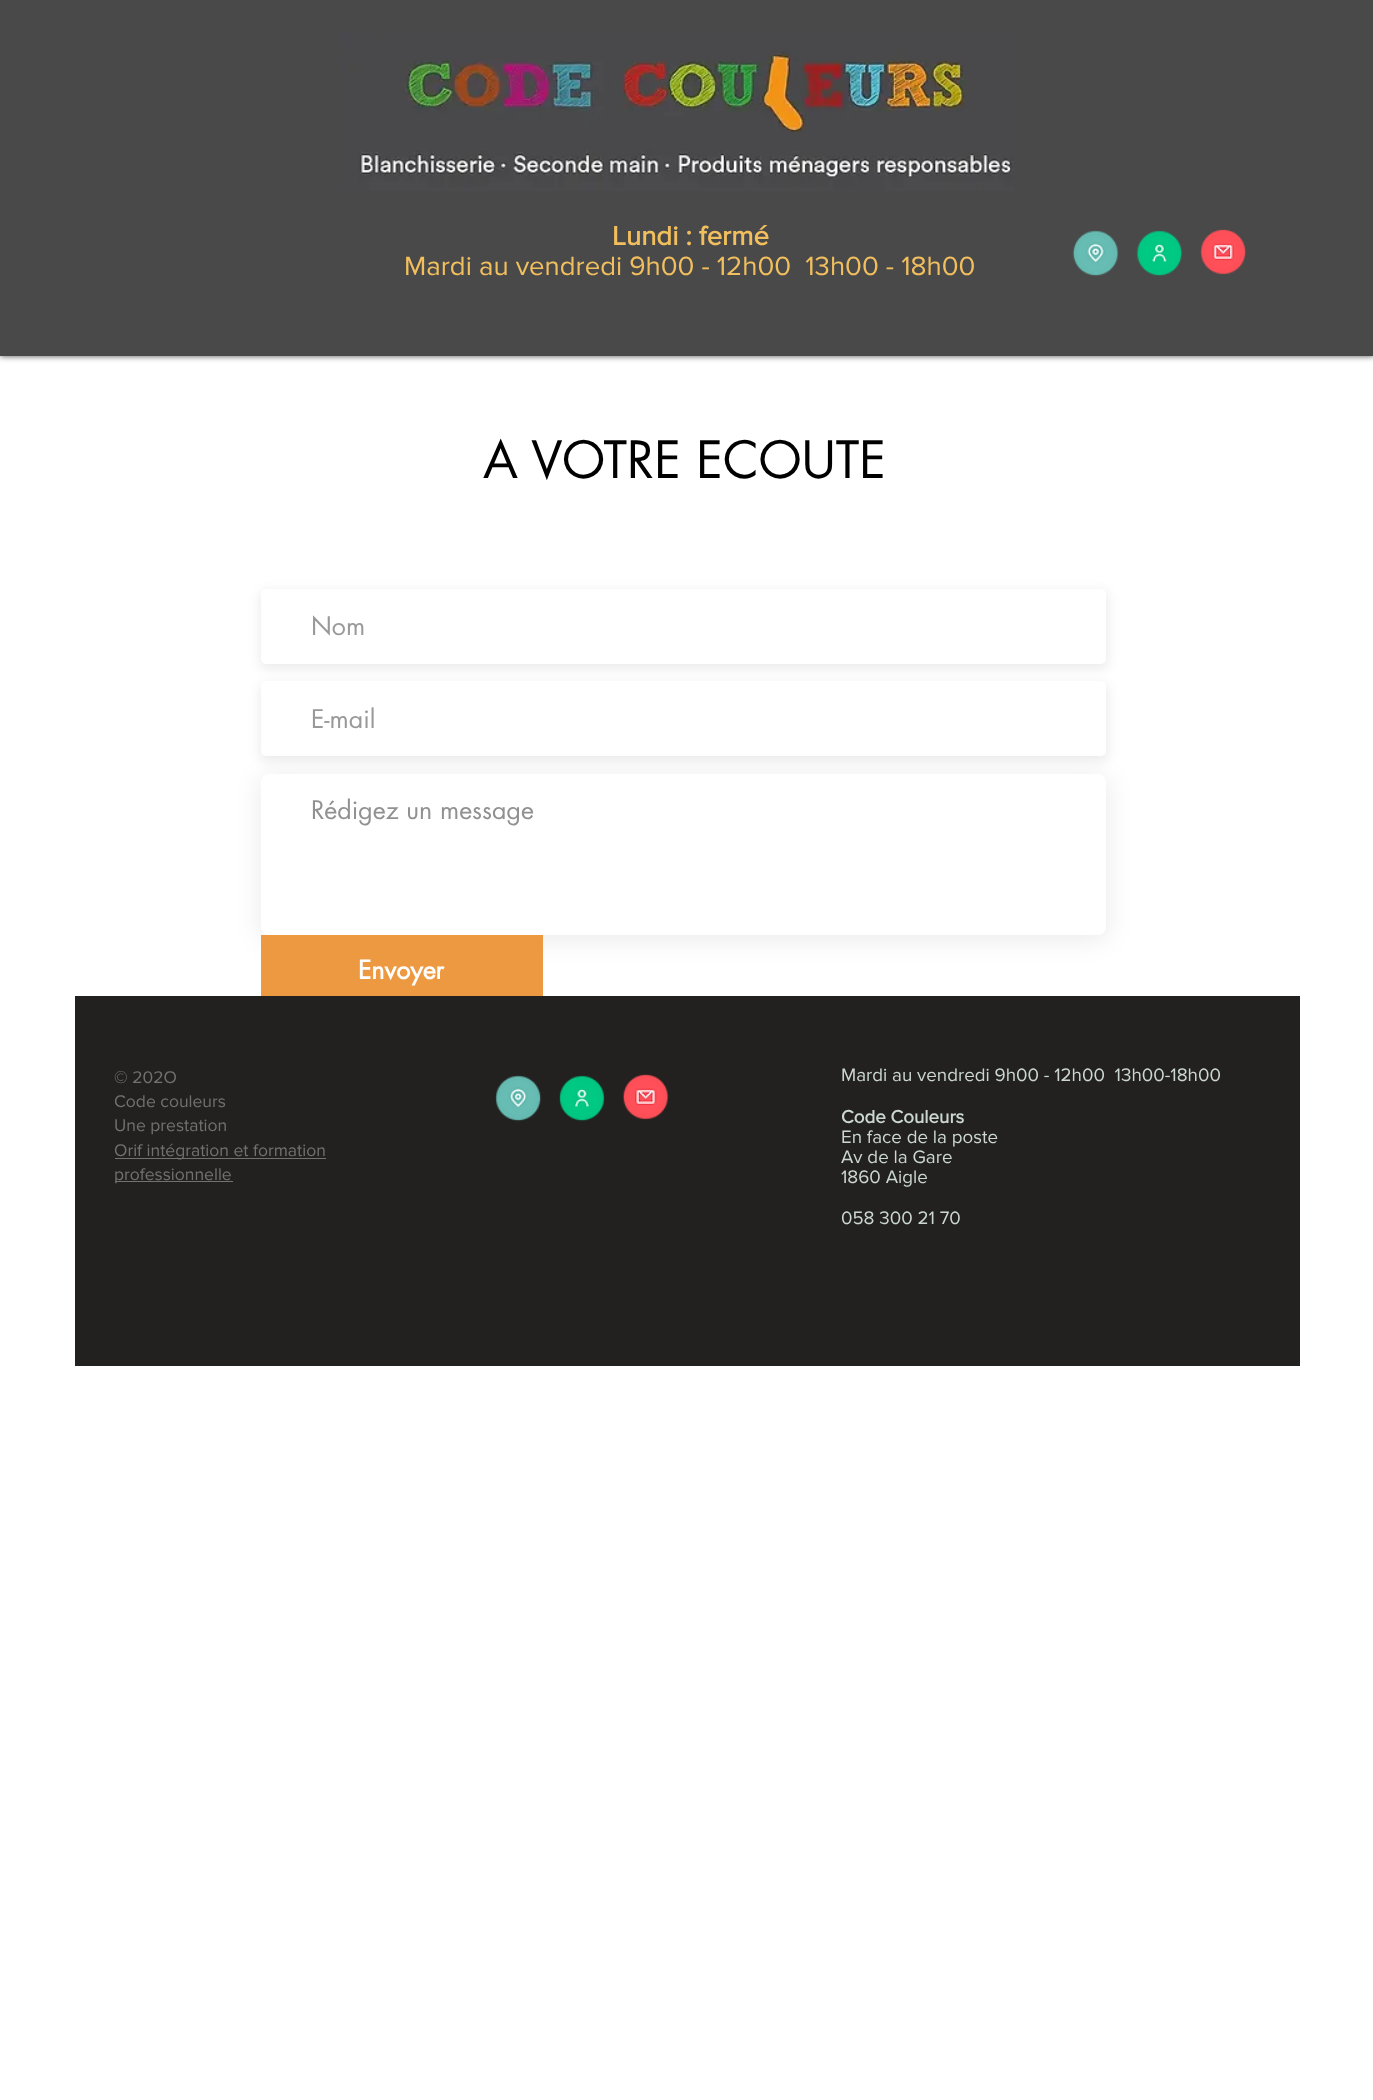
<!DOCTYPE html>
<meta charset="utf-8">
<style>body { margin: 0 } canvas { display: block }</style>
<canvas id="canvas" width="1373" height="2100"></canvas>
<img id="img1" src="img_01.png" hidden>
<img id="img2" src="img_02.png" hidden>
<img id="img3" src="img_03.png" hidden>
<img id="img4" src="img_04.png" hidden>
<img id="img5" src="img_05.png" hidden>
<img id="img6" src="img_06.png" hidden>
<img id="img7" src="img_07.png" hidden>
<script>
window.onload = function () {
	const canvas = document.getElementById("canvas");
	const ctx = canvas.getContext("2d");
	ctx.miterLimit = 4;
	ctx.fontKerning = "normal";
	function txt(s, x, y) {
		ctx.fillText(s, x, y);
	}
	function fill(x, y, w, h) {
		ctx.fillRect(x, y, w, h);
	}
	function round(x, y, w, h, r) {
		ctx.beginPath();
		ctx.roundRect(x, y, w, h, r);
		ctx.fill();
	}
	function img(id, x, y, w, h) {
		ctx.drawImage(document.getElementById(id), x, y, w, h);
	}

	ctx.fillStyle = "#FFFFFF";
	fill(0, 0, 1373, 2100);
	ctx.fillStyle = "rgba(0, 0, 0, 0.7)";
	ctx.filter = "blur(3px)";
	ctx.beginPath();
	ctx.rect(0, 0, 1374, 356);
	ctx.fill();
	ctx.filter = "none";
	ctx.fillStyle = "#494949";
	fill(0, 0, 1373, 356);
	img("img1", 339, 32, 675, 159);
	img("img2", 1072, 230, 47, 46);
	img("img3", 1136, 230, 47, 46);
	img("img4", 1200, 229, 47, 46);
	ctx.fillStyle = "rgba(0, 0, 0, 0.08)";
	ctx.filter = "blur(6px)";
	ctx.beginPath();
	ctx.roundRect(260, 591, 848, 78, 6);
	ctx.fill();
	ctx.filter = "none";
	ctx.fillStyle = "#FFFFFF";
	round(261, 589, 845, 75, 5);
	ctx.fillStyle = "rgba(0, 0, 0, 0.08)";
	ctx.filter = "blur(6px)";
	ctx.beginPath();
	ctx.roundRect(260, 684, 848, 77, 6);
	ctx.fill();
	ctx.filter = "none";
	ctx.fillStyle = "#FFFFFF";
	round(261, 681, 845, 75, 5);
	ctx.fillStyle = "rgba(0, 0, 0, 0.08)";
	ctx.filter = "blur(12px)";
	ctx.beginPath();
	ctx.roundRect(260, 776, 848, 164, 9);
	ctx.fill();
	ctx.filter = "none";
	ctx.fillStyle = "#FFFFFF";
	round(261, 774, 845, 161, 8);
	ctx.fillStyle = "#ED9942";
	fill(261, 935, 282, 61);
	ctx.fillStyle = "#222120";
	fill(75, 996, 1225, 370);
	ctx.fillStyle = "#72716F";
	fill(115, 1158, 211, 1);
	fill(115, 1181, 118, 1);
	img("img5", 495, 1075, 47, 47);
	img("img6", 559, 1075, 46, 47);
	img("img7", 622, 1074, 47, 46);
	ctx.font = "bold 27.5px 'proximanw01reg'";
	ctx.fillStyle = "#F2BF5E";
	txt("Lundi : fermé", 612, 245);
	ctx.font = "27.5px 'proximanw01reg'";
	txt("Mardi au vendredi 9h00 - 12h00  13h00 - 18h00", 404, 275);
	ctx.font = "50px futura";
	ctx.fillStyle = "#000000";
	txt("A VOTRE ECOUTE", 483, 478);
	ctx.font = "25px futura";
	ctx.fillStyle = "#999999";
	txt("Nom", 311, 635);
	txt("E-mail", 311, 728);
	ctx.fillStyle = "#919191";
	txt("Rédigez un message", 311, 819);
	ctx.font = "bold 25px futura";
	ctx.fillStyle = "#FFFFFF";
	txt("Envoyer", 358, 979);
	ctx.font = "17.5px 'proximanw01reg'";
	ctx.fillStyle = "#72716F";
	txt("© 202O", 114, 1083);
	txt("Code couleurs", 114, 1107);
	txt("Une prestation", 114, 1131);
	txt("Orif intégration et formation", 114, 1156);
	txt("professionnelle", 114, 1180);
	ctx.font = "18.75px 'proximanw01reg'";
	ctx.fillStyle = "#CBD7D0";
	txt("Mardi au vendredi 9h00 - 12h00  13h00-18h00", 841, 1081);
	ctx.font = "bold 18.75px 'proximanw01reg'";
	txt("Code Couleurs", 841, 1123);
	ctx.font = "18.75px 'proximanw01reg'";
	txt("En face de la poste", 841, 1143);
	txt("Av de la Gare", 841, 1163);
	txt("1860 Aigle", 841, 1183);
	txt("058 300 21 70", 841, 1224);
};
</script>
